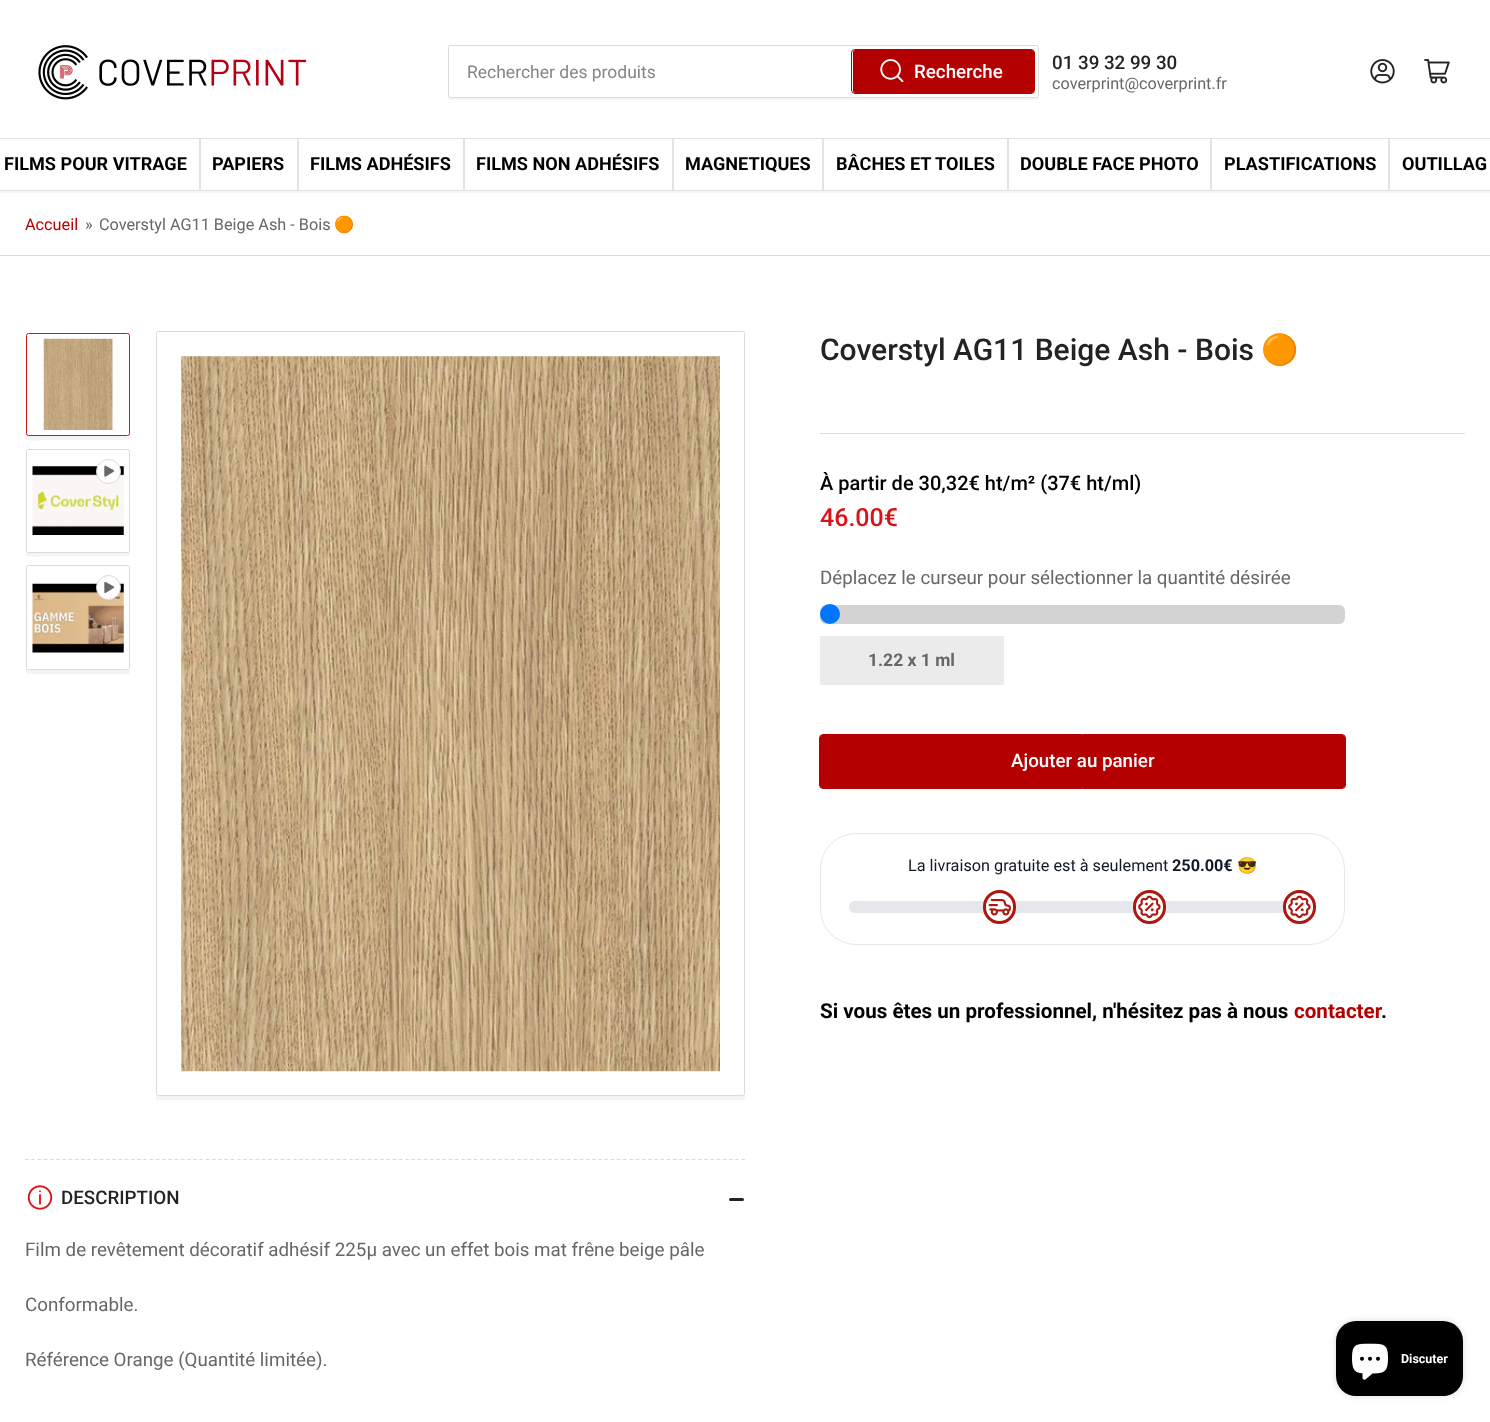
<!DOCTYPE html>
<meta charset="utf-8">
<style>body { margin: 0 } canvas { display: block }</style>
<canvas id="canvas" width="1490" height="1422"></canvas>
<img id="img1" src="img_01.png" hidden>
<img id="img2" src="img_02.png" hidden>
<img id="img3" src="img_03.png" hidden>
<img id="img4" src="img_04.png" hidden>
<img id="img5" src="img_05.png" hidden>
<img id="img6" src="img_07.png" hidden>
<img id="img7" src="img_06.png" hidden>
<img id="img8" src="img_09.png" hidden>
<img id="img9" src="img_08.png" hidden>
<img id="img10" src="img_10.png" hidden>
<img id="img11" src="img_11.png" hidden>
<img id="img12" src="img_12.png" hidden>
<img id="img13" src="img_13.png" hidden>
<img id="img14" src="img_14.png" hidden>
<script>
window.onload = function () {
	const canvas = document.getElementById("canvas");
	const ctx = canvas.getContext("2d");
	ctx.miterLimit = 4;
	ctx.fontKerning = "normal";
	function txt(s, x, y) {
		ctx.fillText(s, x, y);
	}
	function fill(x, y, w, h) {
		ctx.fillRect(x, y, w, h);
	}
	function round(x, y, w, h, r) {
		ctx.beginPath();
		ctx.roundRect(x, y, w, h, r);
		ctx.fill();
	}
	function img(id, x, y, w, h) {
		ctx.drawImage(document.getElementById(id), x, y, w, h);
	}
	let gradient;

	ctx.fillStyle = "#FFFFFF";
	fill(0, 0, 1490, 1422);
	img("img1", 38, 45, 269, 55);
	ctx.fillStyle = "#F4F4F4";
	ctx.beginPath();
	ctx.moveTo(448, 97);
	ctx.bezierCurveTo(448, 98, 448, 100, 450, 100);
	ctx.lineTo(1036, 100);
	ctx.bezierCurveTo(1041, 100, 1039, 90, 1039, 90);
	ctx.lineTo(1039, 49);
	ctx.lineTo(1039, 95);
	ctx.bezierCurveTo(1039, 96, 1038, 98, 1036, 98);
	ctx.lineTo(450, 98);
	ctx.bezierCurveTo(449, 98, 448, 97, 448, 97);
	ctx.closePath();
	ctx.fill();
	ctx.fillStyle = "#FFFFFF";
	ctx.beginPath();
	ctx.roundRect(448.5, 45.5, 590, 52, 2);
	ctx.fill();
	ctx.strokeStyle = "#DADADA";
	ctx.stroke();
	ctx.beginPath();
	ctx.roundRect(851.5, 49.5, 183, 44, 3.5);
	ctx.strokeStyle = "#B40000";
	ctx.stroke();
	ctx.fillStyle = "#B40000";
	round(853, 50, 181, 43, 2.5);
	img("img2", 880, 59, 24, 24);
	img("img3", 1370, 59, 25, 25);
	img("img4", 1424, 59, 26, 25);
	ctx.fillStyle = "#F5F5F5";
	ctx.beginPath();
	ctx.moveTo(-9, 139);
	ctx.lineTo(-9, 193);
	ctx.lineTo(200, 193);
	ctx.lineTo(200, 191);
	ctx.lineTo(-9, 191);
	ctx.closePath();
	ctx.fill();
	ctx.strokeStyle = "#E3E3E3";
	ctx.strokeRect(-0.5, 138.5, 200, 52);
	ctx.beginPath();
	ctx.moveTo(200, 191);
	ctx.lineTo(200, 193);
	ctx.lineTo(298, 193);
	ctx.lineTo(298, 139);
	ctx.lineTo(298, 191);
	ctx.closePath();
	ctx.fill();
	ctx.strokeRect(200.5, 138.5, 97, 52);
	ctx.beginPath();
	ctx.moveTo(298, 191);
	ctx.lineTo(298, 193);
	ctx.lineTo(464, 193);
	ctx.lineTo(464, 139);
	ctx.lineTo(464, 191);
	ctx.closePath();
	ctx.fill();
	ctx.strokeRect(298.5, 138.5, 165, 52);
	ctx.beginPath();
	ctx.moveTo(464, 191);
	ctx.lineTo(464, 193);
	ctx.lineTo(673, 193);
	ctx.lineTo(673, 139);
	ctx.lineTo(672, 139);
	ctx.lineTo(672, 191);
	ctx.closePath();
	ctx.fill();
	ctx.strokeRect(464.5, 138.5, 208, 52);
	ctx.beginPath();
	ctx.moveTo(673, 191);
	ctx.lineTo(673, 193);
	ctx.lineTo(823, 193);
	ctx.lineTo(823, 139);
	ctx.lineTo(822, 139);
	ctx.lineTo(822, 191);
	ctx.closePath();
	ctx.fill();
	ctx.strokeRect(673.5, 138.5, 149, 52);
	ctx.beginPath();
	ctx.moveTo(823, 191);
	ctx.lineTo(823, 193);
	ctx.lineTo(1008, 193);
	ctx.lineTo(1008, 139);
	ctx.lineTo(1008, 191);
	ctx.closePath();
	ctx.fill();
	ctx.strokeRect(823.5, 138.5, 184, 52);
	fill(1008, 191, 203, 2);
	ctx.strokeRect(1008.5, 138.5, 202, 52);
	ctx.beginPath();
	ctx.moveTo(1211, 139);
	ctx.lineTo(1211, 193);
	ctx.lineTo(1389, 193);
	ctx.lineTo(1389, 139);
	ctx.lineTo(1389, 191);
	ctx.lineTo(1211, 191);
	ctx.closePath();
	ctx.fill();
	ctx.strokeRect(1211.5, 138.5, 177, 52);
	fill(1389, 191, 101, 2);
	ctx.strokeRect(1389.5, 138.5, 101, 52);
	ctx.fillStyle = "#DADADA";
	fill(0, 255, 1490, 1);
	ctx.fillStyle = "#F4F4F4";
	ctx.beginPath();
	ctx.moveTo(26, 337);
	ctx.lineTo(26, 438);
	ctx.bezierCurveTo(26, 443, 41, 440, 45, 440);
	ctx.lineTo(128, 440);
	ctx.bezierCurveTo(131, 440, 130, 436, 130, 434);
	ctx.bezierCurveTo(130, 435, 129, 436, 128, 436);
	ctx.lineTo(29, 436);
	ctx.bezierCurveTo(27, 436, 26, 435, 26, 434);
	ctx.closePath();
	ctx.fill();
	ctx.beginPath();
	ctx.roundRect(26.5, 333.5, 103, 102, 2);
	ctx.strokeStyle = "#D91418";
	ctx.stroke();
	img("img5", 43, 338, 70, 92);
	ctx.beginPath();
	ctx.moveTo(26, 454);
	ctx.lineTo(26, 554);
	ctx.bezierCurveTo(26, 559, 41, 556, 45, 556);
	ctx.lineTo(128, 556);
	ctx.bezierCurveTo(131, 556, 130, 552, 130, 550);
	ctx.bezierCurveTo(130, 551, 129, 552, 128, 552);
	ctx.lineTo(29, 552);
	ctx.bezierCurveTo(27, 552, 26, 551, 26, 550);
	ctx.closePath();
	ctx.fill();
	ctx.fillStyle = "#FFFFFF";
	ctx.beginPath();
	ctx.roundRect(26.5, 449.5, 103, 103, 2);
	ctx.fill();
	ctx.strokeStyle = "#DADADA";
	ctx.stroke();
	img("img6", 32, 466, 92, 69);
	ctx.beginPath();
	ctx.arc(108.5, 471.5, 12, 0, Math.PI * 2);
	ctx.fill();
	ctx.stroke();
	img("img7", 104, 465, 10, 12);
	ctx.fillStyle = "#F4F4F4";
	ctx.beginPath();
	ctx.moveTo(26, 570);
	ctx.lineTo(26, 672);
	ctx.bezierCurveTo(26, 673, 27, 674, 28, 674);
	ctx.lineTo(128, 674);
	ctx.bezierCurveTo(129, 674, 130, 673, 130, 672);
	ctx.lineTo(130, 668);
	ctx.bezierCurveTo(130, 669, 129, 670, 128, 670);
	ctx.lineTo(29, 670);
	ctx.bezierCurveTo(27, 670, 26, 669, 26, 668);
	ctx.closePath();
	ctx.fill();
	ctx.beginPath();
	ctx.roundRect(26.5, 565.5, 103, 104, 2);
	ctx.stroke();
	img("img8", 32, 583, 92, 70);
	ctx.fillStyle = "#FFFFFF";
	ctx.beginPath();
	ctx.arc(108.5, 587.5, 12, 0, Math.PI * 2);
	ctx.fill();
	ctx.stroke();
	img("img9", 104, 581, 10, 12);
	gradient = ctx.createLinearGradient(78, 709, 78, 665);
	gradient.addColorStop(0, "#FFFFFF");
	gradient.addColorStop(1, "rgba(255, 255, 255, 0)");
	ctx.fillStyle = gradient;
	fill(27, 669, 102, 1);
	ctx.fillStyle = "#F4F4F4";
	ctx.beginPath();
	ctx.moveTo(156, 336);
	ctx.lineTo(156, 1098);
	ctx.bezierCurveTo(156, 1099, 157, 1100, 158, 1100);
	ctx.lineTo(742, 1100);
	ctx.bezierCurveTo(744, 1100, 745, 1099, 745, 1098);
	ctx.lineTo(745, 1094);
	ctx.bezierCurveTo(745, 1095, 744, 1096, 742, 1096);
	ctx.lineTo(159, 1096);
	ctx.bezierCurveTo(157, 1096, 156, 1095, 156, 1094);
	ctx.closePath();
	ctx.fill();
	ctx.beginPath();
	ctx.roundRect(156.5, 331.5, 588, 764, 2);
	ctx.stroke();
	img("img10", 181, 356, 539, 716);
	ctx.fillStyle = "#DADADA";
	fill(820, 433, 645, 1);
	ctx.fillStyle = "#D3D3D3";
	round(820, 605, 525, 19, 6);
	ctx.fillStyle = "#0075FF";
	ctx.beginPath();
	ctx.arc(830, 614, 10, 0, Math.PI * 2);
	ctx.fill();
	ctx.fillStyle = "#EBEBEB";
	fill(820, 636, 184, 49);
	ctx.beginPath();
	ctx.roundRect(819.5, 734.5, 526, 54, 3.5);
	ctx.strokeStyle = "#B40000";
	ctx.stroke();
	ctx.fillStyle = "#B40000";
	round(820, 735, 525, 53, 2.5);
	ctx.beginPath();
	ctx.roundRect(820.5, 833.5, 524, 111, 35.5);
	ctx.strokeStyle = "#E6E7EB";
	ctx.stroke();
	ctx.fillStyle = "#E5E7EB";
	round(849, 901, 451, 12, 6);
	ctx.fillStyle = "#FFFFFF";
	ctx.beginPath();
	ctx.roundRect(984.5, 891.5, 30, 31, 15);
	ctx.fill();
	ctx.strokeStyle = "#AC1810";
	ctx.lineWidth = 3;
	ctx.stroke();
	img("img11", 988, 899, 23, 17);
	ctx.beginPath();
	ctx.roundRect(1134.5, 891.5, 30, 31, 15);
	ctx.fill();
	ctx.stroke();
	img("img12", 1138, 895, 23, 24);
	ctx.beginPath();
	ctx.roundRect(1284.5, 891.5, 30, 31, 15);
	ctx.fill();
	ctx.stroke();
	img("img12", 1288, 895, 23, 24);
	ctx.beginPath();
	ctx.moveTo(25, 1159.5);
	ctx.lineTo(745, 1159.5);
	ctx.strokeStyle = "#DADADA";
	ctx.lineWidth = 1.2;
	ctx.setLineDash([3.75, 2.48]);
	ctx.stroke();
	img("img13", 27, 1185, 26, 25);
	ctx.fillStyle = "#232323";
	round(729, 1198, 9, 3, 1.5);
	round(734, 1198, 10, 3, 1.5);
	ctx.fillStyle = "rgba(0, 0, 0, 0.15)";
	ctx.filter = "blur(3px)";
	ctx.beginPath();
	ctx.roundRect(1336, 1321, 127, 75, 20);
	ctx.fill();
	ctx.filter = "none";
	ctx.fillStyle = "#000000";
	round(1336, 1321, 127, 75, 20);
	img("img14", 1352, 1343, 36, 37);
	ctx.font = "17.5px Roboto";
	ctx.fillStyle = "#858585";
	txt("Rechercher des produits", 467, 78);
	ctx.font = "500 18.75px Roboto";
	ctx.fillStyle = "#FFFFFF";
	txt("Recherche", 914, 78);
	ctx.fillStyle = "#232323";
	txt("01 39 32 99 30", 1052, 69);
	ctx.font = "16.25px Roboto";
	ctx.fillStyle = "#676767";
	txt("coverprint@coverprint.fr", 1052, 89);
	ctx.font = "bold 18.1px Roboto";
	ctx.fillStyle = "#000000";
	txt("FILMS POUR VITRAGE", 4, 170);
	txt("PAPIERS", 212, 170);
	txt("FILMS ADHÉSIFS", 310, 170);
	txt("FILMS NON ADHÉSIFS", 476, 170);
	txt("MAGNETIQUES", 685, 170);
	txt("BÂCHES ET TOILES", 836, 170);
	txt("DOUBLE FACE PHOTO", 1020, 170);
	txt("PLASTIFICATIONS", 1224, 170);
	txt("OUTILLAG", 1402, 170);
	ctx.font = "16.25px Roboto";
	ctx.fillStyle = "#B40000";
	txt("Accueil", 25, 230);
	ctx.fillStyle = "#676767";
	txt("»", 85, 230);
	txt("Coverstyl AG11 Beige Ash - Bois", 99, 230);
	ctx.font = "16.25px Noto Color Emoji";
	txt("🟠", 334, 230);
	ctx.font = "500 30px Roboto";
	ctx.fillStyle = "#232323";
	txt("Coverstyl AG11 Beige Ash - Bois", 820, 360);
	ctx.font = "30px Noto Color Emoji";
	txt("🟠", 1261, 360);
	ctx.font = "500 20px Roboto";
	ctx.fillStyle = "#000000";
	txt("À partir de 30,32€ ht/m² (37€ ht/ml)", 820, 490);
	ctx.font = "500 25px Roboto";
	ctx.fillStyle = "#D91418";
	txt("46.00€", 820, 526);
	ctx.font = "18.75px Roboto";
	ctx.fillStyle = "#676767";
	txt("Déplacez le curseur pour sélectionner la quantité désirée", 820, 584);
	ctx.font = "bold 17.5px Roboto";
	txt("1.22 x 1 ml", 868, 666);
	ctx.font = "500 18.75px Roboto";
	ctx.fillStyle = "#FFFFFF";
	txt("Ajouter au panier", 1011, 767);
	ctx.font = "16.25px Roboto";
	ctx.fillStyle = "#111827";
	txt("La livraison gratuite est à seulement", 908, 871);
	ctx.font = "bold 16.25px Roboto";
	txt("250.00€", 1172, 871);
	ctx.font = "16.25px Noto Color Emoji";
	txt("😎", 1237, 871);
	ctx.font = "bold 20.6px Roboto";
	ctx.fillStyle = "#000000";
	txt("Si vous êtes un professionnel, n'hésitez pas à nous", 820, 1018);
	ctx.fillStyle = "#B40000";
	txt("contacter", 1294, 1018);
	ctx.fillStyle = "#000000";
	txt(".", 1381, 1018);
	ctx.font = "500 18.75px Roboto";
	ctx.fillStyle = "#232323";
	txt("DESCRIPTION", 61, 1204);
	ctx.font = "18.75px Roboto";
	ctx.fillStyle = "#676767";
	txt("Film de revêtement décoratif adhésif 225µ avec un effet bois mat frêne beige pâle", 25, 1256);
	txt("Conformable.", 25, 1311);
	txt("Référence Orange (Quantité limitée).", 25, 1366);
	ctx.font = "bold 12.5px Roboto";
	ctx.fillStyle = "#FFFFFF";
	txt("Discuter", 1401, 1363);
};
</script>
